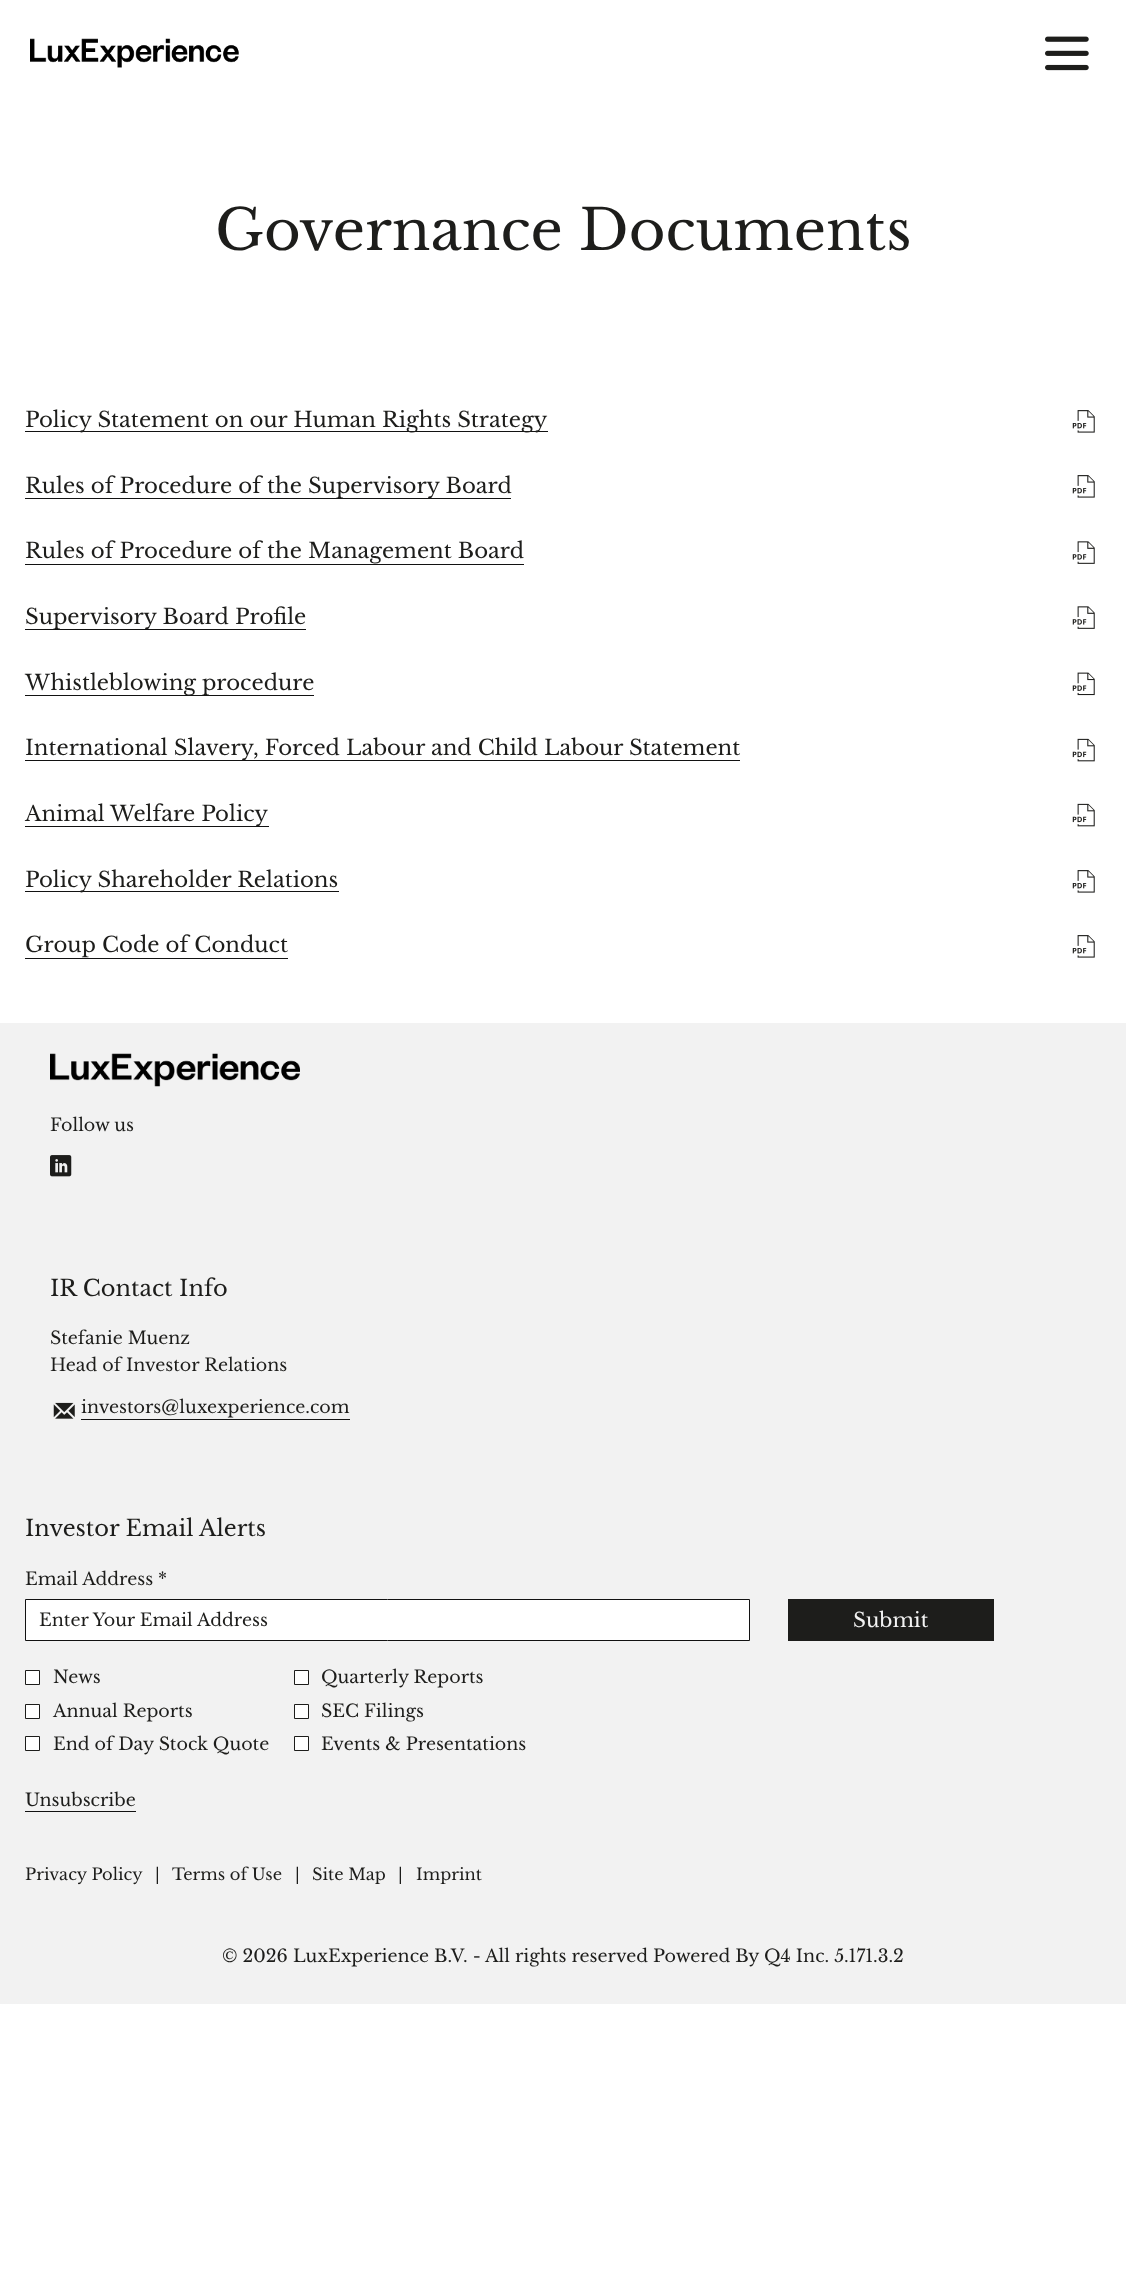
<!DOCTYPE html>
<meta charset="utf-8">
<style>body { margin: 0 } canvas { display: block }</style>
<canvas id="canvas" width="1126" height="2285"></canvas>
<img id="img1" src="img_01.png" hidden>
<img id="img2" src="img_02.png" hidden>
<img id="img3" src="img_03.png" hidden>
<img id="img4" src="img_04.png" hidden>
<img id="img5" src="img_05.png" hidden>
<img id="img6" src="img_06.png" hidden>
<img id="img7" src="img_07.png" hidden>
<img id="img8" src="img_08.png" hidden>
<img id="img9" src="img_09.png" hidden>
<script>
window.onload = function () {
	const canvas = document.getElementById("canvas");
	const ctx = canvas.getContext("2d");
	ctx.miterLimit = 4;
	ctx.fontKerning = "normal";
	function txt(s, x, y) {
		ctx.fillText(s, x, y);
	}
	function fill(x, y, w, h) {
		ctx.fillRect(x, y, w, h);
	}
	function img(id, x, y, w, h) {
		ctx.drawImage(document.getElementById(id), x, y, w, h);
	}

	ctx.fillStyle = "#FFFFFF";
	fill(0, 0, 1126, 2285);
	img("img1", 30, 38, 209, 30);
	img("img2", 1045, 36, 44, 35);
	ctx.fillStyle = "#121212";
	fill(25, 431, 523, 1);
	img("img3", 1072, 410, 23, 23);
	fill(25, 498, 486, 1);
	img("img3", 1072, 475, 23, 23);
	fill(25, 564, 499, 1);
	img("img4", 1072, 541, 23, 23);
	fill(25, 629, 281, 1);
	img("img4", 1072, 606, 23, 23);
	fill(25, 695, 289, 1);
	img("img5", 1072, 672, 23, 24);
	fill(25, 760, 715, 1);
	img("img6", 1072, 738, 23, 24);
	fill(25, 826, 244, 1);
	img("img6", 1072, 803, 23, 24);
	fill(25, 891, 314, 1);
	img("img3", 1072, 870, 23, 23);
	fill(25, 958, 263, 1);
	img("img3", 1072, 935, 23, 23);
	ctx.fillStyle = "#F2F2F2";
	fill(0, 1023, 1126, 981);
	img("img7", 50, 1053, 250, 34);
	img("img8", 50, 1155, 22, 22);
	img("img9", 53, 1402, 22, 17);
	ctx.fillStyle = "#121212";
	fill(81, 1419, 269, 1);
	ctx.fillStyle = "#FFFFFF";
	ctx.beginPath();
	ctx.rect(25.5, 1599.5, 724, 41);
	ctx.fill();
	ctx.strokeStyle = "#121212";
	ctx.stroke();
	ctx.fillStyle = "#1D1D1B";
	fill(788, 1599, 206, 42);
	ctx.fillStyle = "#FFFFFF";
	ctx.beginPath();
	ctx.rect(25.5, 1670.5, 14, 14);
	ctx.fill();
	ctx.strokeStyle = "#1D1D1B";
	ctx.stroke();
	ctx.beginPath();
	ctx.rect(294.5, 1670.5, 14, 14);
	ctx.fill();
	ctx.stroke();
	ctx.beginPath();
	ctx.rect(25.5, 1704.5, 14, 14);
	ctx.fill();
	ctx.stroke();
	ctx.beginPath();
	ctx.rect(294.5, 1704.5, 14, 14);
	ctx.fill();
	ctx.stroke();
	ctx.beginPath();
	ctx.rect(25.5, 1736.5, 14, 14);
	ctx.fill();
	ctx.stroke();
	ctx.beginPath();
	ctx.rect(294.5, 1736.5, 14, 14);
	ctx.fill();
	ctx.stroke();
	ctx.fillStyle = "#121212";
	fill(25, 1811, 111, 1);
	ctx.font = "56.25px Libre Baskerville";
	ctx.fillStyle = "#1D1D1B";
	txt("Governance Documents", 215, 250);
	ctx.font = "21.25px Libre Baskerville";
	txt("Policy Statement on our Human Rights Strategy", 25, 427);
	txt("Rules of Procedure of the Supervisory Board", 25, 493);
	txt("Rules of Procedure of the Management Board", 25, 558);
	txt("Supervisory Board Profile", 25, 624);
	txt("Whistleblowing procedure", 25, 690);
	txt("International Slavery, Forced Labour and Child Labour Statement", 25, 755);
	txt("Animal Welfare Policy", 25, 821);
	txt("Policy Shareholder Relations", 25, 887);
	txt("Group Code of Conduct", 25, 952);
	ctx.font = "17.5px Libre Baskerville";
	txt("Follow us", 50, 1131);
	ctx.font = "22.5px Libre Baskerville";
	txt("IR Contact Info", 50, 1296);
	ctx.font = "17.5px Libre Baskerville";
	txt("Stefanie Muenz", 50, 1344);
	txt("Head of Investor Relations", 50, 1371);
	txt("investors@luxexperience.com", 81, 1413);
	ctx.font = "22.5px Libre Baskerville";
	txt("Investor Email Alerts", 25, 1536);
	ctx.font = "17.5px Libre Baskerville";
	txt("Email Address *", 25, 1585);
	txt("Enter Your Email Address", 39, 1626);
	ctx.font = "20px Libre Baskerville";
	ctx.fillStyle = "#F2F2F2";
	txt("Submit", 853, 1627);
	ctx.font = "17.5px Libre Baskerville";
	ctx.fillStyle = "#1D1D1B";
	txt("News", 53, 1683);
	txt("Quarterly Reports", 321, 1683);
	txt("Annual Reports", 53, 1717);
	txt("SEC Filings", 321, 1717);
	txt("End of Day Stock Quote", 53, 1750);
	txt("Events & Presentations", 321, 1750);
	txt("Unsubscribe", 25, 1806);
	ctx.font = "16.25px Libre Baskerville";
	txt("Privacy Policy", 25, 1880);
	txt("|", 155, 1880);
	txt("Terms of Use", 172, 1880);
	txt("|", 295, 1880);
	txt("Site Map", 312, 1880);
	txt("|", 398, 1880);
	txt("Imprint", 416, 1880);
	ctx.font = "17.5px Libre Baskerville";
	txt("© 2026 LuxExperience B.V. - All rights reserved Powered By Q4 Inc. 5.171.3.2", 222, 1962);
};
</script>
